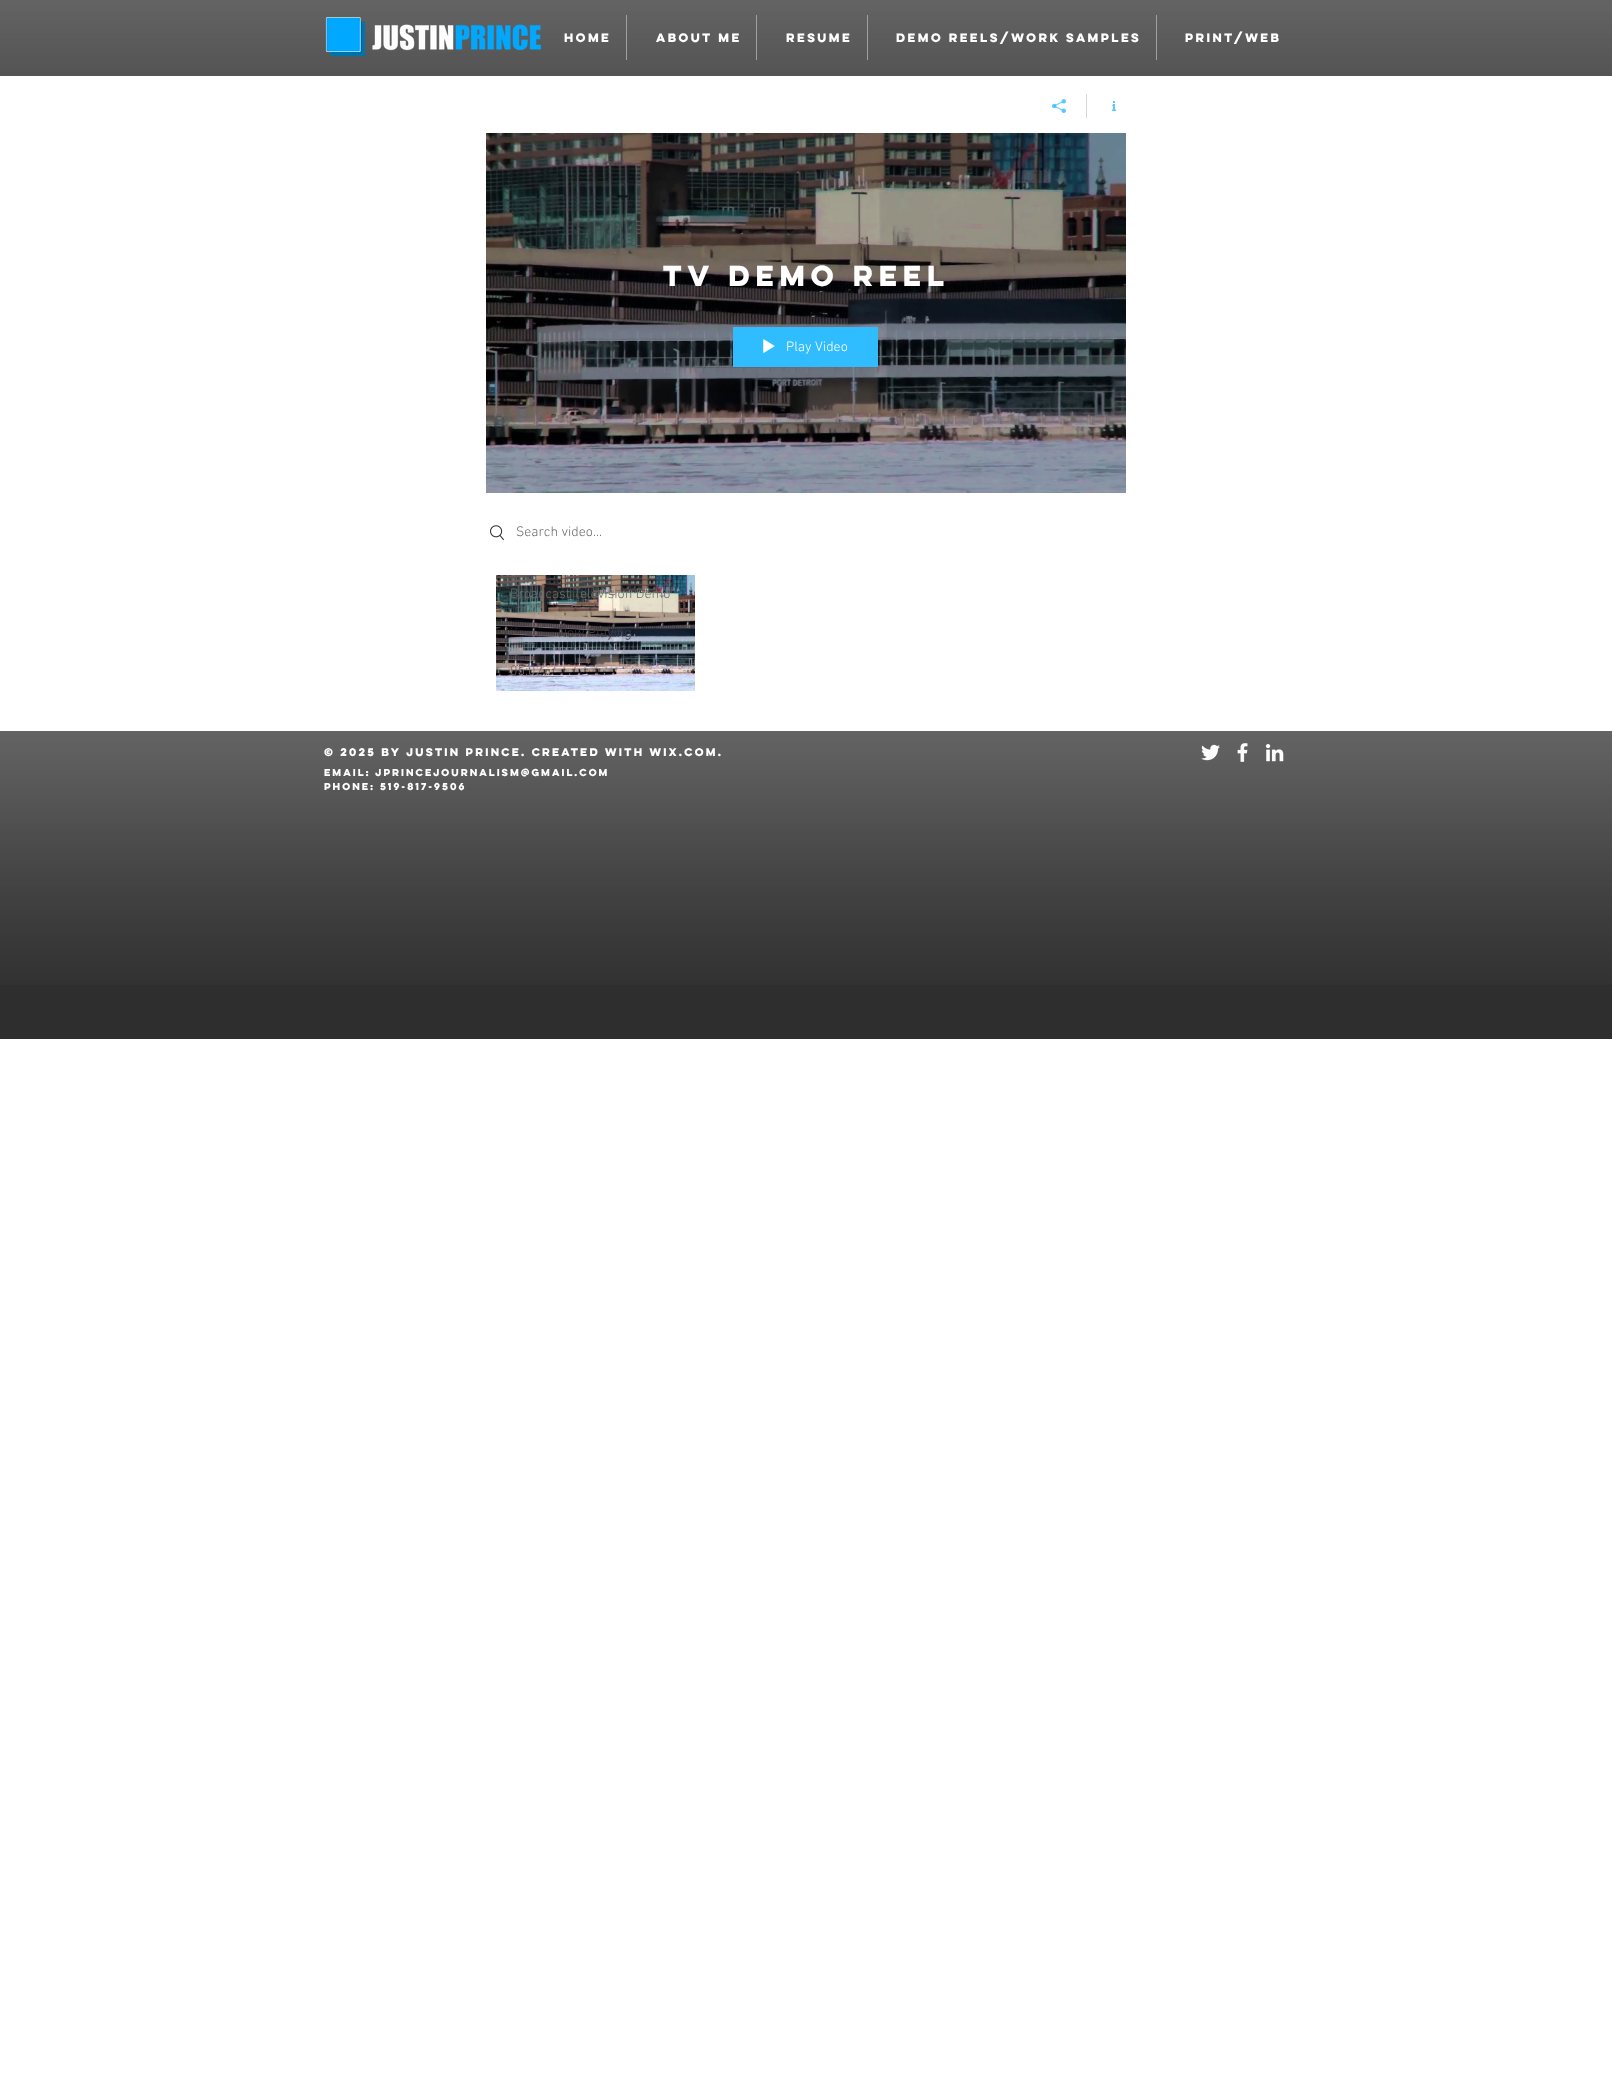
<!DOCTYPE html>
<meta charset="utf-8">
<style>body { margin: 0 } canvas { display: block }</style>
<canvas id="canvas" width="1612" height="2083"></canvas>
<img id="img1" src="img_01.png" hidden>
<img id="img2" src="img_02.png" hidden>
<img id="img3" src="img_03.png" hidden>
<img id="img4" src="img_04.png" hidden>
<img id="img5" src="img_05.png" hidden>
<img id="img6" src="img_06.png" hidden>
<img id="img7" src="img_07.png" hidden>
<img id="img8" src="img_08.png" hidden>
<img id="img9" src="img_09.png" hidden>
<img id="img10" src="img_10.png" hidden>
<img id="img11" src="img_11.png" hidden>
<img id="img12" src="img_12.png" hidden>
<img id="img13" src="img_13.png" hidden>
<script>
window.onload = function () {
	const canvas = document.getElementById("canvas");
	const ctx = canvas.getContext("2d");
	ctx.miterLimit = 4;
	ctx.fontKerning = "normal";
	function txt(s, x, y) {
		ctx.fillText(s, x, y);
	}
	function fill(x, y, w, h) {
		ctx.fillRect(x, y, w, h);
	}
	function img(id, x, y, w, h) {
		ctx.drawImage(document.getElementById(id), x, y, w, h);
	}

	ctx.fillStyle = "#FFFFFF";
	fill(0, 0, 1612, 2083);
	ctx.fillStyle = "#2F2E2E";
	fill(0, 0, 1612, 76);
	img("img1", 0, 0, 1612, 76);
	img("img2", 325, 17, 216, 40);
	ctx.fillStyle = "#A0A09F";
	fill(626, 15, 1, 45);
	fill(756, 15, 1, 45);
	fill(867, 15, 1, 45);
	fill(1156, 15, 1, 45);
	ctx.fillStyle = "#D5D5D5";
	fill(1086, 94, 1, 24);
	img("img3", 1052, 99, 14, 14);
	img("img4", 1112, 101, 4, 10);
	img("img5", 486, 133, 640, 360);
	ctx.fillStyle = "#30BDFF";
	fill(733, 327, 145, 40);
	img("img6", 763, 339, 12, 14);
	img("img7", 490, 525, 14, 16);
	img("img8", 694, 575, 1, 116);
	img("img9", 496, 575, 199, 116);
	ctx.fillStyle = "#2F2E2E";
	fill(0, 731, 1612, 308);
	img("img10", 0, 731, 1612, 254);
	img("img11", 1201, 744, 19, 17);
	img("img12", 1237, 743, 11, 19);
	img("img13", 1265, 743, 19, 19);
	ctx.font = "bold 11px 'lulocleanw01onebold'";
	ctx.fillStyle = "#FFFFFF";
	txt("Home", 564, 42);
	txt("About Me", 656, 42);
	txt("Resume", 786, 42);
	txt("Demo Reels/Work Samples", 896, 42);
	txt("Print/Web", 1185, 42);
	ctx.font = "bold 26px 'lulocleanw01onebold'";
	txt("TV Demo Reel", 663, 286);
	ctx.font = "300 14px 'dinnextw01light'";
	txt("Play Video", 786, 351);
	ctx.fillStyle = "#6D6D6D";
	txt("Search video...", 516, 536);
	txt("Broadcast Television Demo", 510, 598);
	ctx.fillStyle = "#3D3D45";
	txt("Now Playing", 558, 637);
	ctx.fillStyle = "#796B6D";
	txt("05:02", 510, 675);
	ctx.font = "bold 10px 'lulocleanw01onebold'";
	ctx.fillStyle = "#FFFFFF";
	txt("© 2025 by Justin Prince. created with Wix.com.", 324, 756);
	ctx.font = "bold 9px 'lulocleanw01onebold'";
	txt("EMAIL: JPRINCEJOURNALISM@GMAIL.COM", 324, 776);
	txt("Phone: 519-817-9506", 324, 790);
};
</script>
